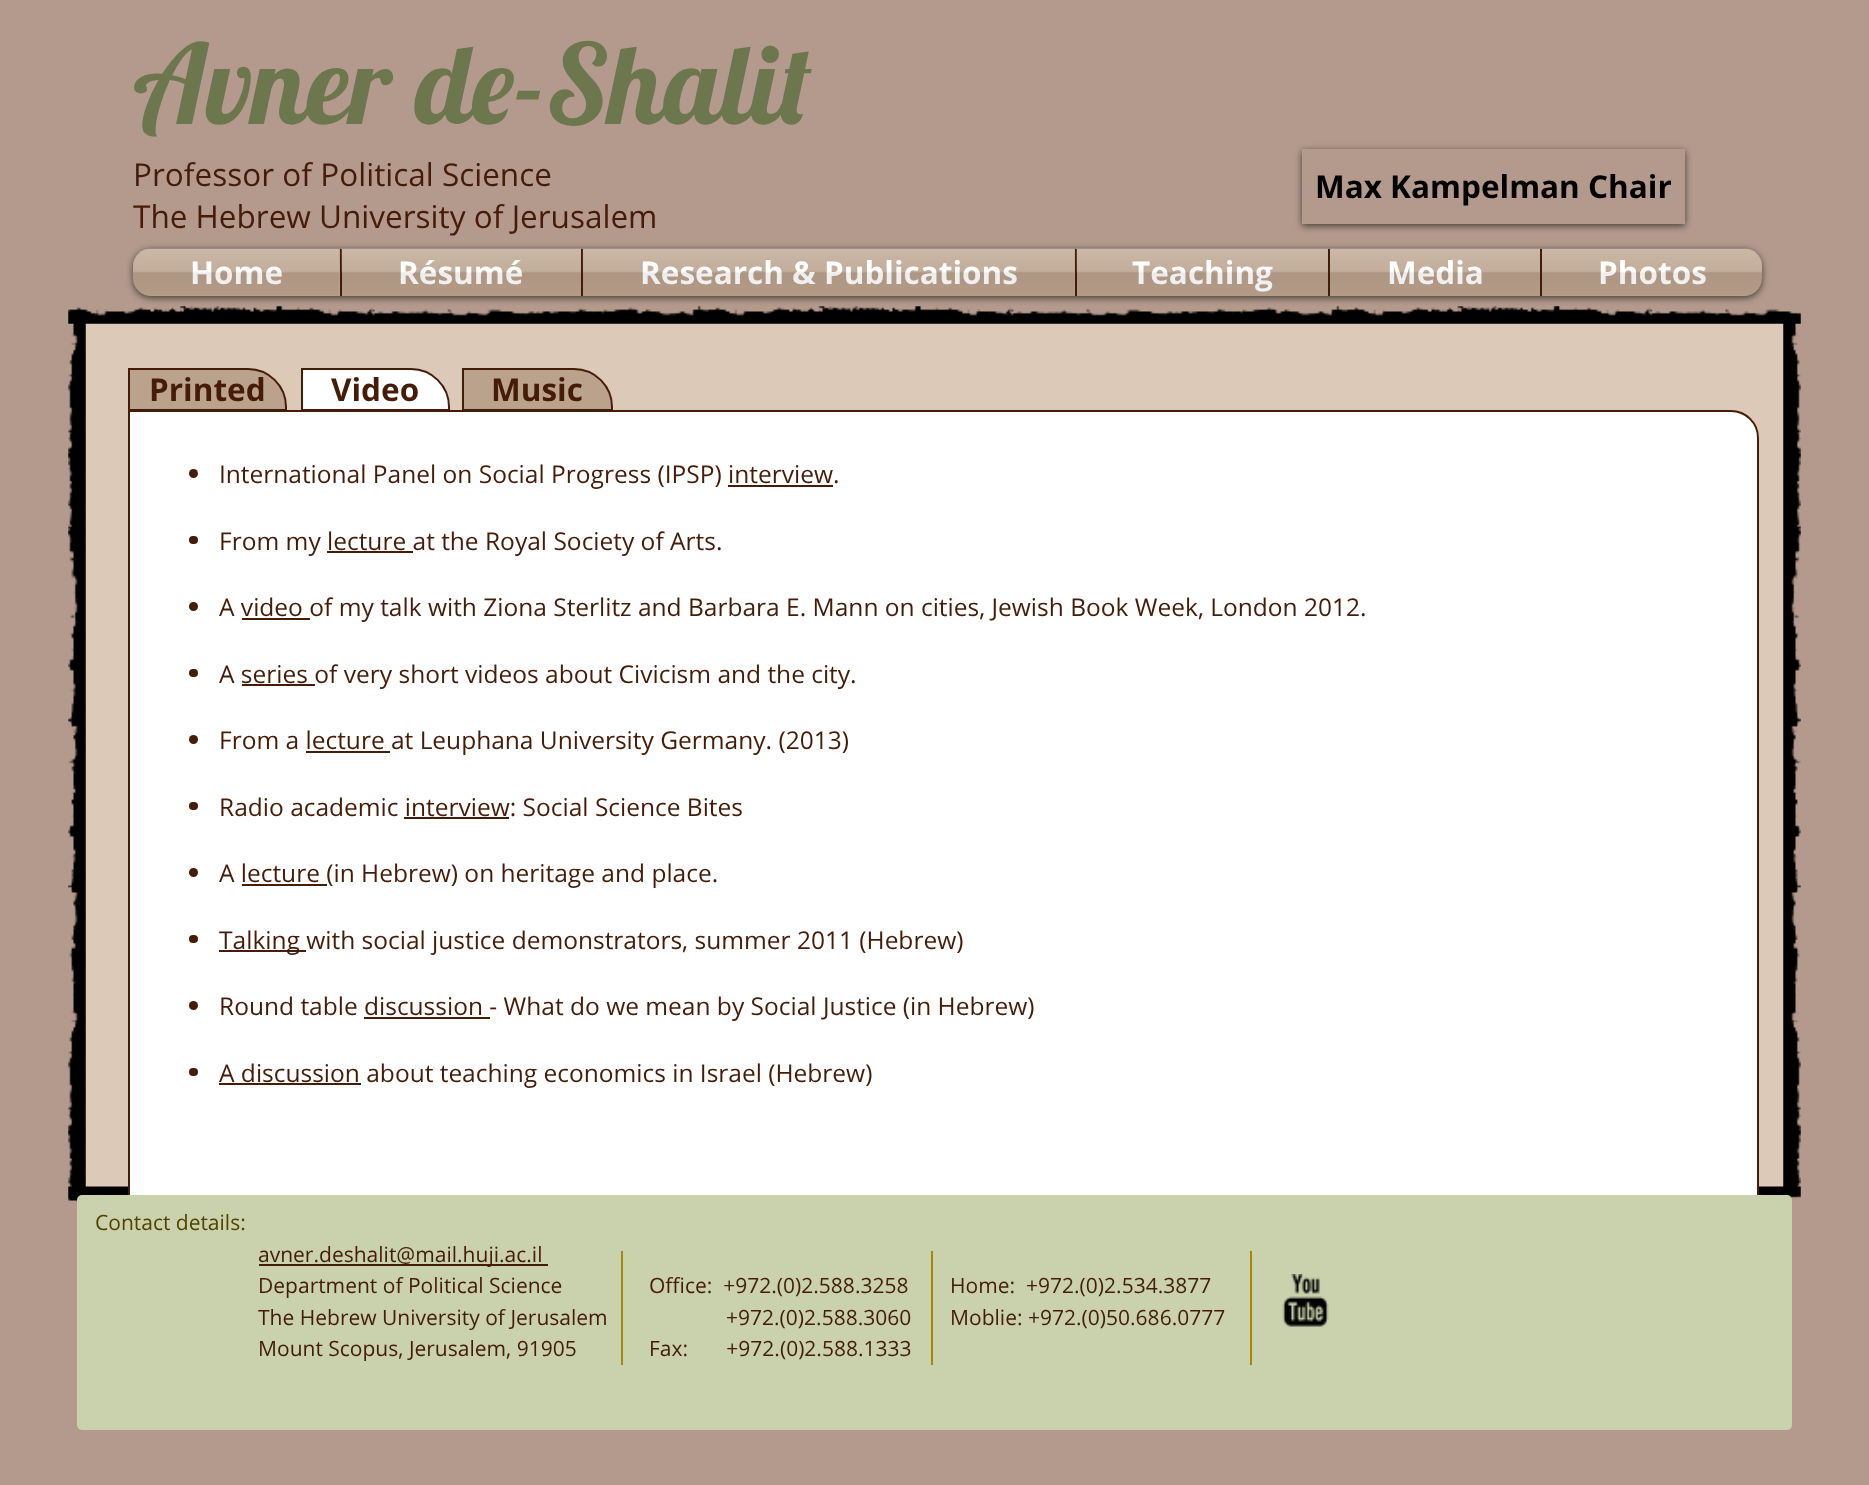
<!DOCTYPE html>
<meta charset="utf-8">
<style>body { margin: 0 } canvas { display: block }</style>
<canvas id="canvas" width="1869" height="1485"></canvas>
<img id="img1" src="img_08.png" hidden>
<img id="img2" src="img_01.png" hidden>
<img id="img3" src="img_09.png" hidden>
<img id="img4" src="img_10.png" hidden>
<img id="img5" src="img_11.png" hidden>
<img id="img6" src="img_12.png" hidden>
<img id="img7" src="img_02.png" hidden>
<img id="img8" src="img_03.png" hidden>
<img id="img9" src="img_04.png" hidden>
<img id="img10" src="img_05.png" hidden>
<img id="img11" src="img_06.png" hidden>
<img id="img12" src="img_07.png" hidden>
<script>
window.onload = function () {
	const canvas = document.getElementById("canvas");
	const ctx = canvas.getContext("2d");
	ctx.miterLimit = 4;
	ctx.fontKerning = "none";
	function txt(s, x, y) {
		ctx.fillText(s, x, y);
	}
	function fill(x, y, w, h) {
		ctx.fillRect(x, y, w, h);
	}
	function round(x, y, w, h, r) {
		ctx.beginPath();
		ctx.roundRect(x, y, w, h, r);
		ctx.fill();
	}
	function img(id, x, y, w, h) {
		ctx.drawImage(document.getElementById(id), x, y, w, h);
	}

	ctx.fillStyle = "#B49A8D";
	fill(0, 0, 1869, 1485);
	ctx.save();
	ctx.beginPath();
	ctx.moveTo(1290, 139);
	ctx.lineTo(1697, 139);
	ctx.lineTo(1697, 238);
	ctx.lineTo(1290, 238);
	ctx.closePath();
	ctx.moveTo(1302, 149);
	ctx.lineTo(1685, 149);
	ctx.lineTo(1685, 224);
	ctx.lineTo(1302, 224);
	ctx.closePath();
	ctx.clip("evenodd");
	ctx.fillStyle = "rgba(0, 0, 0, 0.6)";
	ctx.filter = "blur(3.5px)";
	ctx.beginPath();
	ctx.rect(1302, 151, 383, 75);
	ctx.fill();
	ctx.filter = "none";
	ctx.restore();
	ctx.fillStyle = "#DCC9B8";
	fill(85, 323, 1699, 864);
	img("img1", 68, 306, 1733, 18);
	ctx.fillStyle = "rgba(0, 0, 0, 0.6)";
	ctx.filter = "blur(3.5px)";
	ctx.beginPath();
	ctx.roundRect(133, 250, 1629, 48, 18);
	ctx.fill();
	ctx.filter = "none";
	img("img2", 133, 248, 1629, 48);
	ctx.fillStyle = "#BBA28D";
	ctx.beginPath();
	ctx.roundRect(133, 249, 207, 47, [18, 0, 0, 18]);
	ctx.fill();
	fill(342, 249, 239, 47);
	ctx.fillStyle = "#441C08";
	fill(340, 249, 2, 47);
	ctx.fillStyle = "#BBA28D";
	fill(583, 249, 492, 47);
	ctx.fillStyle = "#441C08";
	fill(581, 249, 2, 47);
	ctx.fillStyle = "#BBA28D";
	fill(1077, 249, 251, 47);
	ctx.fillStyle = "#441C08";
	fill(1075, 249, 2, 47);
	ctx.fillStyle = "#BBA28D";
	fill(1330, 249, 210, 47);
	ctx.beginPath();
	ctx.roundRect(1540, 249, 222, 47, [0, 18, 18, 0]);
	ctx.fill();
	ctx.fillStyle = "#441C08";
	fill(1540, 249, 2, 47);
	ctx.fillStyle = "#BBA28D";
	ctx.beginPath();
	ctx.roundRect(129, 369, 157, 41, [0, 38, 0, 0]);
	ctx.fill();
	ctx.strokeStyle = "#441C08";
	ctx.lineWidth = 2;
	ctx.stroke();
	ctx.fillStyle = "#FFFFFF";
	ctx.beginPath();
	ctx.roundRect(302, 369, 147, 41, [0, 38, 0, 0]);
	ctx.fill();
	ctx.stroke();
	ctx.fillStyle = "#BBA28D";
	ctx.beginPath();
	ctx.roundRect(463, 369, 149, 41, [0, 38, 0, 0]);
	ctx.fill();
	ctx.stroke();
	img("img3", 68, 1186, 1733, 17);
	ctx.fillStyle = "#FFFFFF";
	ctx.beginPath();
	ctx.roundRect(129, 411, 1629, 789, [0, 27, 0, 0]);
	ctx.fill();
	ctx.stroke();
	ctx.fillStyle = "#441C08";
	ctx.beginPath();
	ctx.arc(193.5, 473.5, 4.5, 0, Math.PI * 2);
	ctx.fill();
	fill(728, 485, 105, 2);
	round(189, 536, 9, 8, 4);
	fill(327, 551, 86, 2);
	ctx.beginPath();
	ctx.arc(193.5, 606.5, 4.5, 0, Math.PI * 2);
	ctx.fill();
	fill(242, 618, 68, 2);
	round(189, 669, 9, 8, 4);
	fill(242, 684, 73, 2);
	ctx.beginPath();
	ctx.arc(193.5, 739.5, 4.5, 0, Math.PI * 2);
	ctx.fill();
	fill(306, 751, 84, 2);
	round(189, 802, 9, 8, 4);
	fill(404, 817, 105, 2);
	ctx.beginPath();
	ctx.arc(193.5, 872.5, 4.5, 0, Math.PI * 2);
	ctx.fill();
	fill(242, 884, 85, 2);
	round(189, 935, 9, 8, 4);
	fill(219, 950, 87, 2);
	ctx.beginPath();
	ctx.arc(193.5, 1005.5, 4.5, 0, Math.PI * 2);
	ctx.fill();
	fill(364, 1017, 126, 2);
	round(189, 1068, 9, 8, 4);
	fill(219, 1083, 142, 2);
	img("img4", 68, 323, 18, 864);
	img("img5", 1783, 323, 18, 864);
	ctx.fillStyle = "#C9D1AD";
	round(77, 1195, 1715, 235, 5);
	ctx.fillStyle = "#441C08";
	fill(259, 1264, 289, 2);
	ctx.fillStyle = "#A98700";
	fill(621, 1251, 2, 114);
	fill(931, 1251, 2, 114);
	fill(1250, 1251, 2, 114);
	img("img6", 1282, 1274, 47, 53);
	ctx.font = "110.25px Lobster";
	ctx.fillStyle = "#6D774D";
	txt("Avner de-Shalit", 133, 124);
	ctx.font = "31.5px Open Sans";
	ctx.fillStyle = "#441C08";
	txt("Professor of Political Science", 133, 186);
	txt("The Hebrew University of Jerusalem", 133, 228);
	ctx.font = "bold 31.5px Open Sans";
	ctx.fillStyle = "#000000";
	txt("Max Kampelman Chair", 1315, 198);
	ctx.fillStyle = "#FFFFFF";
	txt("Home", 190, 284);
	img("img7", 133, 248, 207, 48);
	txt("Résumé", 398, 284);
	img("img8", 341, 248, 240, 48);
	txt("Research & Publications", 640, 284);
	img("img9", 582, 248, 493, 48);
	txt("Teaching", 1132, 284);
	img("img10", 1076, 248, 253, 48);
	ctx.fillStyle = "#441C08";
	fill(1328, 249, 2, 47);
	ctx.fillStyle = "#FFFFFF";
	txt("Media", 1387, 284);
	img("img11", 1330, 248, 210, 48);
	txt("Photos", 1598, 284);
	img("img12", 1542, 248, 220, 48);
	ctx.fillStyle = "#441C08";
	txt("Printed", 149, 401);
	txt("Video", 331, 401);
	txt("Music", 491, 401);
	ctx.font = "24.5px Open Sans";
	txt("International Panel on Social Progress (IPSP) interview.", 219, 483);
	txt("From my lecture at the Royal Society of Arts.", 219, 550);
	txt("A video of my talk with Ziona Sterlitz and Barbara E. Mann on cities, Jewish Book Week, London 2012.", 219, 616);
	txt("A series of very short videos about Civicism and the city.", 219, 683);
	txt("From a lecture at Leuphana University Germany. (2013)", 219, 749);
	txt("Radio academic interview: Social Science Bites", 219, 816);
	txt("A lecture (in Hebrew) on heritage and place.", 219, 882);
	txt("Talking with social justice demonstrators, summer 2011 (Hebrew)", 219, 949);
	txt("Round table discussion - What do we mean by Social Justice (in Hebrew)", 219, 1015);
	txt("A discussion about teaching economics in Israel (Hebrew)", 219, 1082);
	ctx.font = "21px Open Sans";
	ctx.fillStyle = "#544300";
	txt("Contact details:", 95, 1230);
	ctx.fillStyle = "#441C08";
	txt("avner.deshalit@mail.huji.ac.il", 258, 1262);
	txt("Department of Political Science", 258, 1293);
	txt("The Hebrew University of Jerusalem", 258, 1325);
	txt("Mount Scopus, Jerusalem, 91905", 258, 1356);
	txt("Office:  +972.(0)2.588.3258", 649, 1293);
	txt("+972.(0)2.588.3060", 726, 1325);
	txt("Fax:       +972.(0)2.588.1333", 649, 1356);
	txt("Home:  +972.(0)2.534.3877", 950, 1293);
	txt("Moblie: +972.(0)50.686.0777", 950, 1325);
};
</script>
